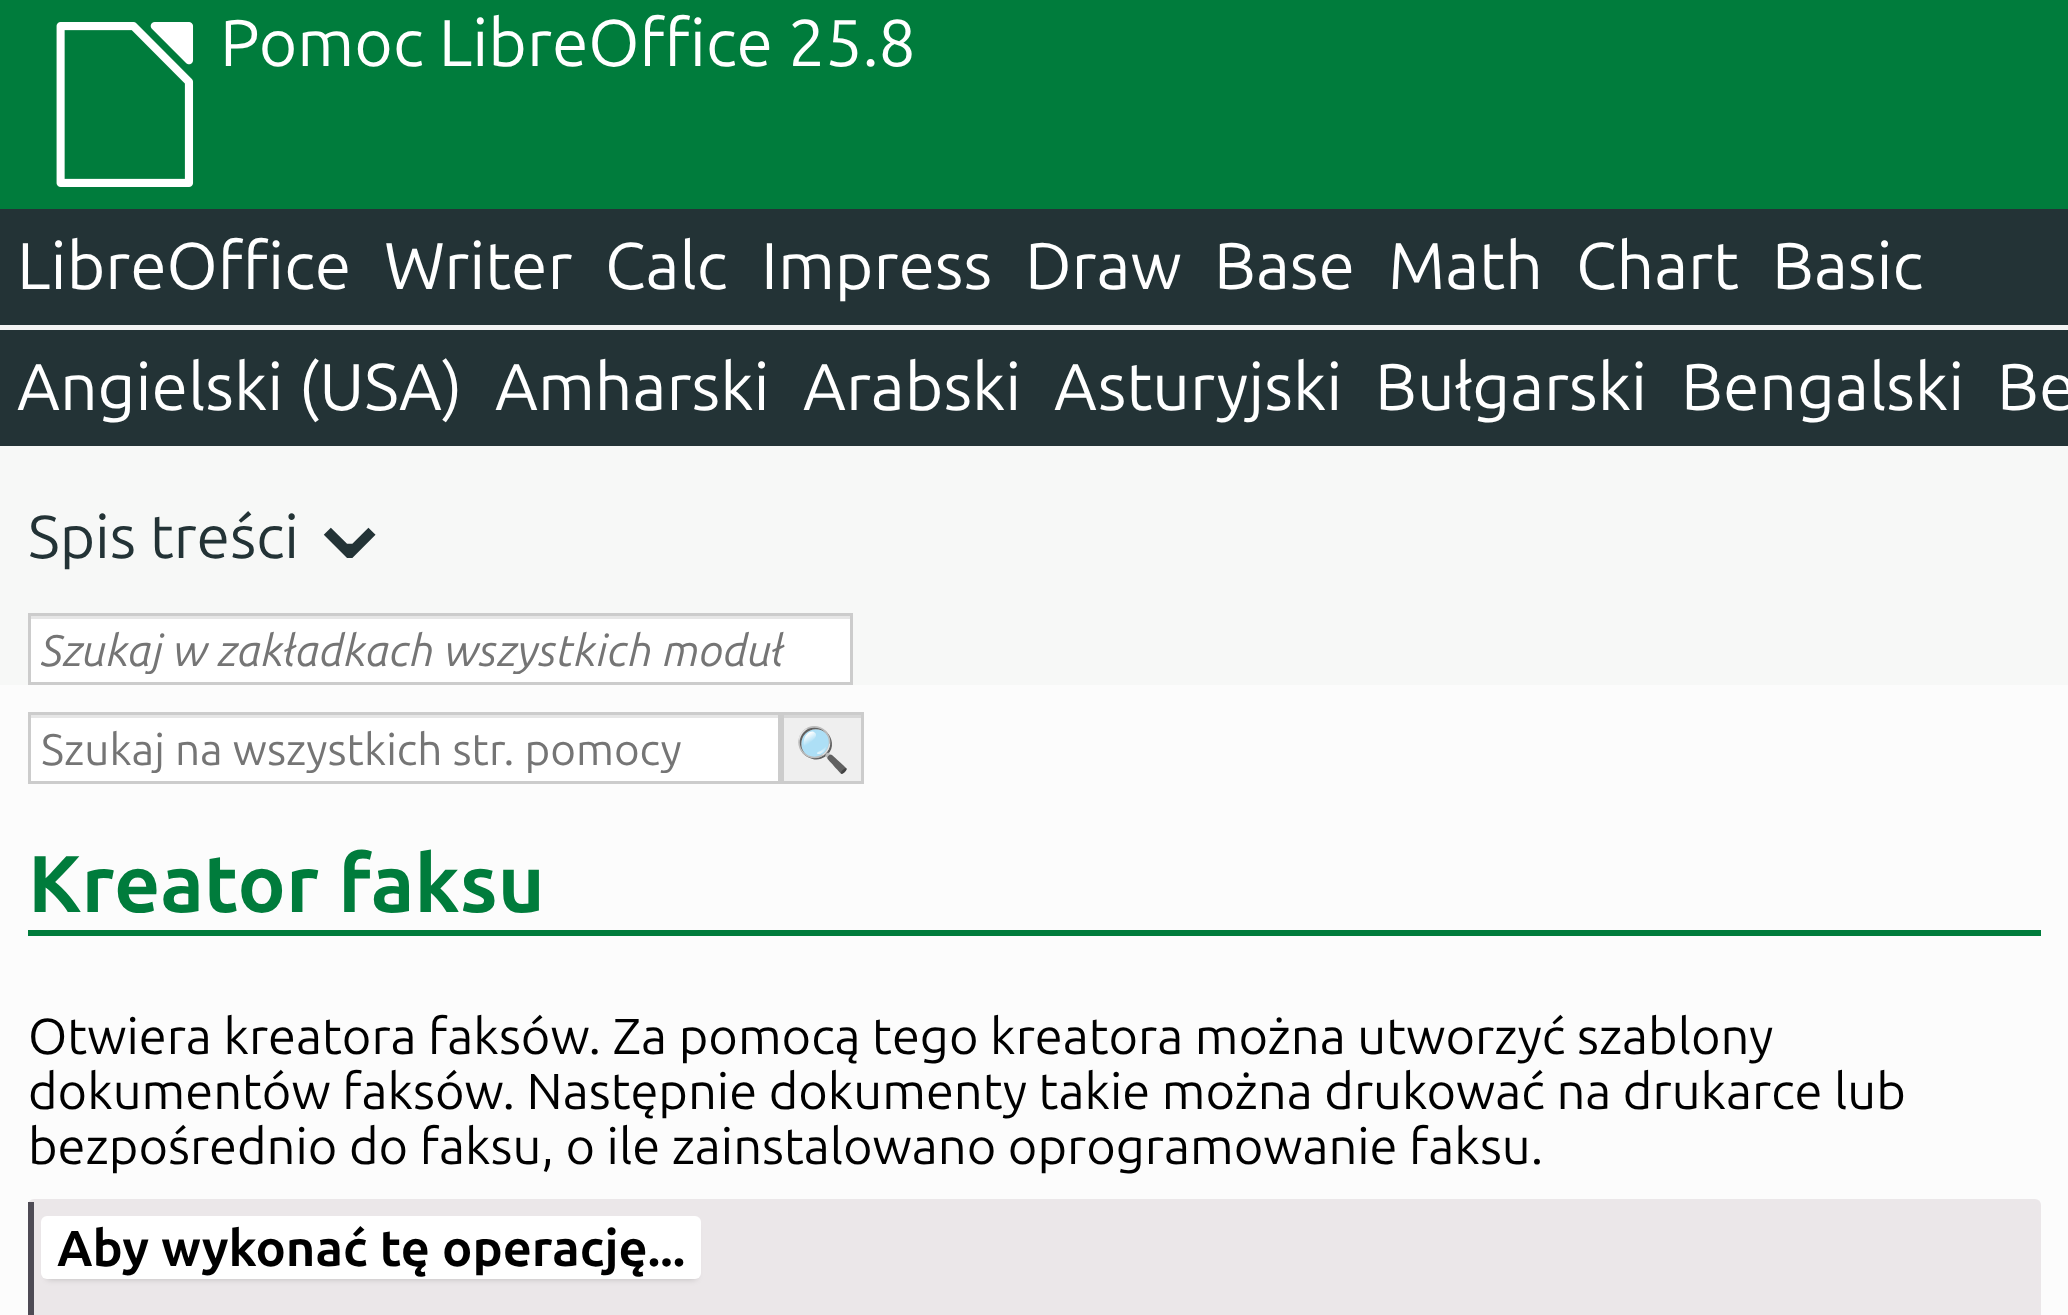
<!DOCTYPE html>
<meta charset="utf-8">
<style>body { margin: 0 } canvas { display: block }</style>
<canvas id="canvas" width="2068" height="1315"></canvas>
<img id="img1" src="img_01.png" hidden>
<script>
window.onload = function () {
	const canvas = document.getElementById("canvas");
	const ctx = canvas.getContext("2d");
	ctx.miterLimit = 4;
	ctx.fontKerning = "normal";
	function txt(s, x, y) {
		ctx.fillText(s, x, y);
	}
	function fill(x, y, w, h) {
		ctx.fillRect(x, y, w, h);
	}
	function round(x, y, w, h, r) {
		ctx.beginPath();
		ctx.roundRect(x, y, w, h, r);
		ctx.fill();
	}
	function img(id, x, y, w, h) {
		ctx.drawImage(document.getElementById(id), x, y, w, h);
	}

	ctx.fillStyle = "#F7F8F7";
	fill(0, 0, 2068, 1315);
	ctx.fillStyle = "#007C3C";
	fill(0, 0, 2068, 209);
	img("img1", 56, 22, 138, 165);
	ctx.fillStyle = "#233336";
	fill(0, 209, 2068, 116);
	ctx.fillStyle = "#F3F3F3";
	fill(0, 325, 2068, 5);
	ctx.fillStyle = "#233336";
	fill(0, 330, 2068, 116);
	ctx.fillStyle = "#FFFFFF";
	fill(31, 619, 819, 63);
	ctx.fillStyle = "#E6E6E6";
	fill(30, 616, 820, 3);
	ctx.strokeStyle = "#CCCCCC";
	ctx.lineWidth = 3;
	ctx.strokeRect(29.5, 614.5, 822, 69);
	ctx.fillStyle = "#FCFCFC";
	fill(0, 685, 2068, 630);
	ctx.fillStyle = "#FFFFFF";
	fill(31, 718, 747, 63);
	ctx.fillStyle = "#E6E6E6";
	fill(30, 715, 748, 3);
	ctx.strokeRect(29.5, 713.5, 750, 69);
	ctx.fillStyle = "#EFEFEF";
	fill(784, 718, 77, 63);
	ctx.fillStyle = "#D7D7D7";
	fill(784, 715, 77, 3);
	ctx.strokeRect(782.5, 713.5, 80, 69);
	ctx.fillStyle = "#007C3C";
	fill(28, 930, 2013, 6);
	ctx.fillStyle = "#EBE7E9";
	round(28, 1199, 2013, 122, 6);
	ctx.fillStyle = "#4E4B55";
	fill(28, 1202, 6, 113);
	ctx.fillStyle = "rgba(0, 0, 0, 0.2)";
	ctx.filter = "blur(3px)";
	ctx.beginPath();
	ctx.rect(47, 1227, 649, 52);
	ctx.fill();
	ctx.filter = "none";
	ctx.fillStyle = "#FFFFFF";
	round(41, 1216, 660, 63, 6);
	ctx.font = "66px Ubuntu";
	txt("Pomoc LibreOffice 25.8", 220, 66);
	txt("LibreOffice", 17, 289);
	txt("Writer", 384, 289);
	txt("Calc", 605, 289);
	txt("Impress", 761, 289);
	txt("Draw", 1025, 289);
	txt("Base", 1214, 289);
	txt("Math", 1388, 289);
	txt("Chart", 1576, 289);
	txt("Basic", 1772, 289);
	txt("Angielski (USA)", 17, 410);
	txt("Amharski", 495, 410);
	txt("Arabski", 803, 410);
	txt("Asturyjski", 1054, 410);
	txt("Bułgarski", 1375, 410);
	txt("Bengalski", 1681, 410);
	txt("Be", 1997, 410);
	ctx.font = "60.5px Ubuntu";
	ctx.fillStyle = "#233336";
	txt("Spis treści", 28, 558);
	ctx.font = "121px DejaVu Sans";
	txt("⌄", 299, 558);
	ctx.save();
	ctx.beginPath();
	ctx.rect(41, 624, 757, 50);
	ctx.clip();
	ctx.font = "italic 44px Ubuntu";
	ctx.fillStyle = "#757575";
	txt("Szukaj w zakładkach wszystkich moduł", 41, 666);
	ctx.restore();
	ctx.save();
	ctx.beginPath();
	ctx.rect(41, 723, 685, 50);
	ctx.clip();
	ctx.font = "44px Ubuntu";
	ctx.fillStyle = "#757575";
	txt("Szukaj na wszystkich str. pomocy", 41, 765);
	ctx.restore();
	ctx.font = "44px Noto Color Emoji";
	ctx.fillStyle = "#000000";
	txt("🔍", 795, 765);
	ctx.font = "bold 80.5px Ubuntu";
	ctx.fillStyle = "#007C3C";
	txt("Kreator faksu", 28, 912);
	ctx.font = "50.6px Ubuntu";
	ctx.fillStyle = "#000000";
	txt("Otwiera kreatora faksów. Za pomocą tego kreatora można utworzyć szablony", 28, 1054);
	txt("dokumentów faksów. Następnie dokumenty takie można drukować na drukarce lub", 28, 1109);
	txt("bezpośrednio do faksu, o ile zainstalowano oprogramowanie faksu.", 28, 1164);
	ctx.font = "bold 50.6px Ubuntu";
	txt("Aby wykonać tę operację...", 57, 1266);
};
</script>
